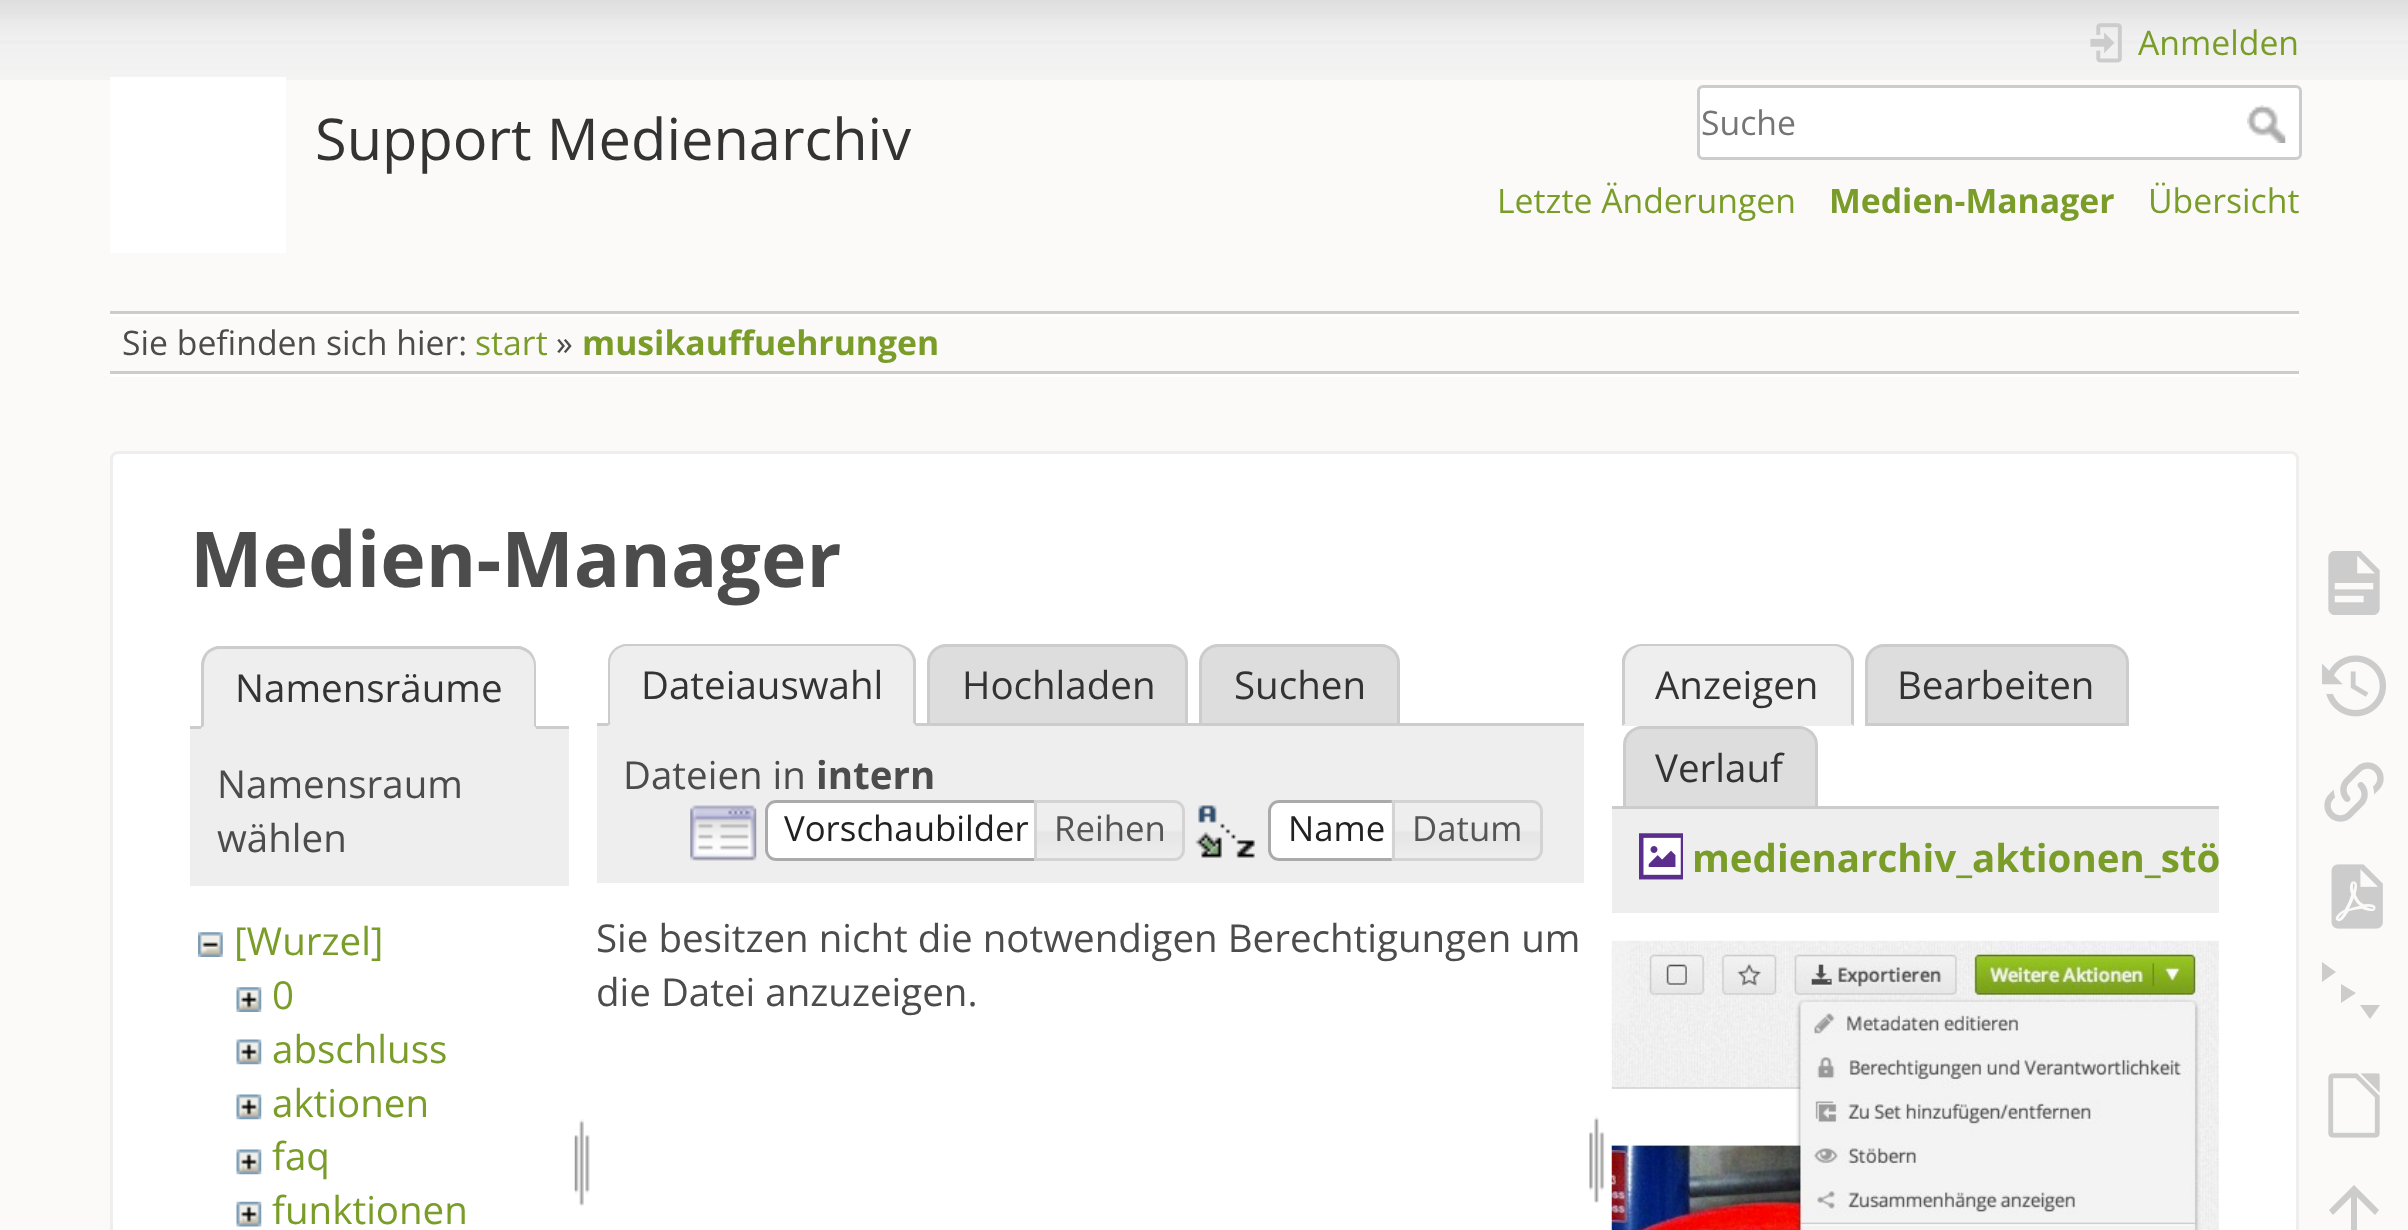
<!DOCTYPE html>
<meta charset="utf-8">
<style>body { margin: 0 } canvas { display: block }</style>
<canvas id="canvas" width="2408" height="1230"></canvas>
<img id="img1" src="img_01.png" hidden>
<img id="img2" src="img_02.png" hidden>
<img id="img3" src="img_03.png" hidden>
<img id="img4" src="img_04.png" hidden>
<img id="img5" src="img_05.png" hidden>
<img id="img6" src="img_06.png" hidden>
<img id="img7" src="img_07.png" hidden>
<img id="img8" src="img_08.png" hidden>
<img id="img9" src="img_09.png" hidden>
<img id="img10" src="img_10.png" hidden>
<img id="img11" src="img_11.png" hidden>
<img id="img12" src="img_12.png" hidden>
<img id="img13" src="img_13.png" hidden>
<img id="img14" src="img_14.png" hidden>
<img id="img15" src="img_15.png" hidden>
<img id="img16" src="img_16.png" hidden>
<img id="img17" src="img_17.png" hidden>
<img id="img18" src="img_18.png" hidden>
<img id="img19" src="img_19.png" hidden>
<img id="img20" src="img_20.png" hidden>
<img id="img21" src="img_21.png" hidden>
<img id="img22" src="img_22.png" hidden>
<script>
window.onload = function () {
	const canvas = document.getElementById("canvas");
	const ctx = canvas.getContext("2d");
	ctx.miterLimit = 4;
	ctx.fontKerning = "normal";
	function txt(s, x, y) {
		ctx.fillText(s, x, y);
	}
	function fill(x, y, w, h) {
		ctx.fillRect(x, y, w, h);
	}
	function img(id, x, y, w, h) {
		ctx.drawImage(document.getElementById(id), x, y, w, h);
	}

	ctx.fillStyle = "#FBFAF9";
	fill(0, 0, 2408, 1230);
	img("img1", 0, 0, 2408, 80);
	ctx.fillStyle = "#FFFFFF";
	fill(110, 77, 176, 176);
	img("img2", 2090, 23, 32, 40);
	ctx.beginPath();
	ctx.roundRect(1698.5, 86.5, 602, 72, 4.5);
	ctx.fill();
	ctx.strokeStyle = "#CCCCCC";
	ctx.lineWidth = 3;
	ctx.stroke();
	img("img3", 2247, 105, 39, 38);
	ctx.fillStyle = "#CCCCCC";
	fill(110, 311, 2189, 3);
	ctx.fillStyle = "#FFFFFF";
	fill(110, 374, 2189, 3);
	fill(110, 314, 2189, 3);
	ctx.fillStyle = "#CCCCCC";
	fill(110, 371, 2189, 3);
	ctx.fillStyle = "#FFFFFF";
	ctx.beginPath();
	ctx.roundRect(111.5, 452.5, 2186, 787, 6.5);
	ctx.fill();
	ctx.strokeStyle = "#EEEEEE";
	ctx.stroke();
	ctx.fillStyle = "#CCCCCC";
	fill(190, 726, 379, 3);
	ctx.fillStyle = "#EEEEEE";
	ctx.beginPath();
	ctx.roundRect(201, 646, 335, 83, [19, 19, 0, 0]);
	ctx.fill();
	ctx.fillStyle = "#CCCCCC";
	ctx.beginPath();
	ctx.moveTo(220, 649);
	ctx.bezierCurveTo(215, 649, 211, 651, 208, 654);
	ctx.lineTo(206, 652);
	ctx.bezierCurveTo(209, 649, 213, 647, 217, 646);
	ctx.lineTo(520, 646);
	ctx.bezierCurveTo(524, 647, 528, 649, 531, 652);
	ctx.lineTo(529, 654);
	ctx.bezierCurveTo(526, 651, 521, 649, 517, 649);
	ctx.closePath();
	ctx.fill();
	ctx.beginPath();
	ctx.moveTo(531, 652);
	ctx.bezierCurveTo(534, 656, 536, 660, 536, 666);
	ctx.lineTo(536, 728);
	ctx.lineTo(534, 726);
	ctx.lineTo(534, 666);
	ctx.bezierCurveTo(534, 661, 532, 657, 529, 654);
	ctx.closePath();
	ctx.fill();
	ctx.fillStyle = "#EEEEEE";
	ctx.beginPath();
	ctx.moveTo(201, 729);
	ctx.lineTo(204, 726);
	ctx.lineTo(534, 726);
	ctx.lineTo(536, 728);
	ctx.closePath();
	ctx.fill();
	ctx.fillStyle = "#CCCCCC";
	ctx.beginPath();
	ctx.moveTo(201, 728);
	ctx.lineTo(201, 666);
	ctx.bezierCurveTo(201, 660, 203, 656, 206, 652);
	ctx.lineTo(208, 654);
	ctx.bezierCurveTo(206, 657, 204, 661, 204, 666);
	ctx.lineTo(204, 726);
	ctx.closePath();
	ctx.fill();
	ctx.fillStyle = "#EEEEEE";
	fill(190, 729, 379, 157);
	img("img4", 198, 932, 25, 25);
	img("img5", 236, 987, 26, 25);
	img("img6", 236, 1039, 26, 26);
	img("img6", 236, 1094, 26, 26);
	img("img6", 236, 1149, 26, 26);
	img("img7", 236, 1201, 26, 26);
	img("img8", 574, 1119, 16, 87);
	ctx.fillStyle = "#DDDDDD";
	ctx.beginPath();
	ctx.roundRect(928.5, 645.5, 258, 79, [17.5, 17.5, 0, 0]);
	ctx.fill();
	ctx.strokeStyle = "#CCCCCC";
	ctx.stroke();
	ctx.beginPath();
	ctx.roundRect(1200.5, 645.5, 198, 79, [17.5, 17.5, 0, 0]);
	ctx.fill();
	ctx.stroke();
	ctx.fillStyle = "#CCCCCC";
	fill(597, 723, 987, 3);
	ctx.fillStyle = "#EEEEEE";
	ctx.beginPath();
	ctx.roundRect(608, 644, 308, 82, [19, 19, 0, 0]);
	ctx.fill();
	ctx.fillStyle = "#CCCCCC";
	ctx.beginPath();
	ctx.moveTo(627, 644);
	ctx.bezierCurveTo(622, 644, 617, 646, 614, 649);
	ctx.lineTo(615, 651);
	ctx.bezierCurveTo(618, 648, 623, 646, 627, 646);
	ctx.lineTo(896, 646);
	ctx.bezierCurveTo(901, 646, 905, 648, 908, 651);
	ctx.lineTo(910, 649);
	ctx.bezierCurveTo(906, 646, 901, 644, 896, 644);
	ctx.closePath();
	ctx.fill();
	ctx.beginPath();
	ctx.moveTo(910, 649);
	ctx.bezierCurveTo(913, 652, 915, 656, 916, 660);
	ctx.lineTo(916, 726);
	ctx.lineTo(913, 723);
	ctx.lineTo(913, 663);
	ctx.bezierCurveTo(913, 658, 911, 654, 908, 651);
	ctx.closePath();
	ctx.fill();
	ctx.fillStyle = "#EEEEEE";
	ctx.beginPath();
	ctx.moveTo(916, 726);
	ctx.lineTo(913, 723);
	ctx.lineTo(611, 723);
	ctx.lineTo(608, 726);
	ctx.closePath();
	ctx.fill();
	ctx.fillStyle = "#CCCCCC";
	ctx.beginPath();
	ctx.moveTo(614, 649);
	ctx.bezierCurveTo(610, 653, 608, 657, 608, 663);
	ctx.lineTo(608, 726);
	ctx.lineTo(611, 723);
	ctx.lineTo(610, 723);
	ctx.lineTo(610, 663);
	ctx.bezierCurveTo(610, 658, 612, 654, 615, 651);
	ctx.closePath();
	ctx.fill();
	ctx.fillStyle = "#EEEEEE";
	fill(597, 726, 987, 157);
	img("img9", 690, 805, 67, 56);
	ctx.fillStyle = "#FFFFFF";
	ctx.beginPath();
	ctx.roundRect(765, 800, 283, 61, [11, 0, 0, 11]);
	ctx.fill();
	img("img10", 764, 801, 7, 59);
	ctx.beginPath();
	ctx.roundRect(766.5, 801.5, 280, 58, [9.5, 0, 0, 9.5]);
	ctx.strokeStyle = "#AAAAAA";
	ctx.stroke();
	img("img11", 1037, 800, 148, 61);
	ctx.beginPath();
	ctx.roundRect(1035.5, 801.5, 148, 58, [0, 9.5, 9.5, 0]);
	ctx.strokeStyle = "#D3D3D3";
	ctx.stroke();
	img("img12", 1195, 805, 60, 53);
	ctx.beginPath();
	ctx.roundRect(1268, 800, 137, 61, [11, 0, 0, 11]);
	ctx.fill();
	img("img13", 1268, 801, 6, 59);
	ctx.beginPath();
	ctx.roundRect(1269.5, 801.5, 134, 58, [9.5, 0, 0, 9.5]);
	ctx.strokeStyle = "#AAAAAA";
	ctx.stroke();
	img("img14", 1391, 800, 152, 61);
	ctx.beginPath();
	ctx.roundRect(1393.5, 801.5, 148, 58, [0, 9.5, 9.5, 0]);
	ctx.strokeStyle = "#D3D3D3";
	ctx.stroke();
	img("img15", 1589, 1116, 16, 87);
	ctx.fillStyle = "#EEEEEE";
	ctx.beginPath();
	ctx.roundRect(1623, 644, 231, 82, [19, 19, 0, 0]);
	ctx.fill();
	ctx.fillStyle = "#CCCCCC";
	ctx.beginPath();
	ctx.moveTo(1642, 644);
	ctx.bezierCurveTo(1637, 644, 1632, 646, 1628, 649);
	ctx.lineTo(1630, 651);
	ctx.bezierCurveTo(1633, 648, 1638, 646, 1642, 646);
	ctx.lineTo(1834, 646);
	ctx.bezierCurveTo(1838, 646, 1843, 648, 1846, 651);
	ctx.lineTo(1848, 649);
	ctx.bezierCurveTo(1844, 646, 1839, 644, 1834, 644);
	ctx.closePath();
	ctx.fill();
	ctx.beginPath();
	ctx.moveTo(1848, 649);
	ctx.bezierCurveTo(1851, 652, 1853, 655, 1854, 659);
	ctx.lineTo(1854, 726);
	ctx.lineTo(1850, 723);
	ctx.lineTo(1851, 723);
	ctx.lineTo(1851, 663);
	ctx.bezierCurveTo(1851, 658, 1849, 654, 1846, 651);
	ctx.closePath();
	ctx.fill();
	ctx.fillStyle = "#EEEEEE";
	ctx.beginPath();
	ctx.moveTo(1854, 726);
	ctx.lineTo(1850, 723);
	ctx.lineTo(1626, 723);
	ctx.lineTo(1622, 726);
	ctx.closePath();
	ctx.fill();
	ctx.fillStyle = "#CCCCCC";
	ctx.beginPath();
	ctx.moveTo(1622, 726);
	ctx.lineTo(1626, 723);
	ctx.lineTo(1625, 723);
	ctx.lineTo(1625, 663);
	ctx.bezierCurveTo(1625, 658, 1627, 654, 1630, 651);
	ctx.lineTo(1628, 649);
	ctx.bezierCurveTo(1625, 652, 1623, 655, 1622, 659);
	ctx.closePath();
	ctx.fill();
	ctx.fillStyle = "#DDDDDD";
	ctx.beginPath();
	ctx.roundRect(1866.5, 645.5, 261, 79, [17.5, 17.5, 0, 0]);
	ctx.fill();
	ctx.strokeStyle = "#CCCCCC";
	ctx.stroke();
	ctx.beginPath();
	ctx.roundRect(1624.5, 727.5, 192, 80, [17.5, 17.5, 0, 0]);
	ctx.fill();
	ctx.stroke();
	ctx.fillStyle = "#CCCCCC";
	fill(1612, 806, 607, 3);
	ctx.fillStyle = "#EEEEEE";
	fill(1612, 809, 607, 104);
	img("img16", 1639, 833, 44, 47);
	img("img17", 1611, 940, 608, 290);
	img("img18", 2328, 551, 52, 64);
	img("img19", 2322, 655, 64, 62);
	img("img20", 2324, 762, 60, 60);
	img("img21", 2331, 864, 52, 65);
	ctx.fillStyle = "#CCCCCC";
	ctx.beginPath();
	ctx.moveTo(2322, 962);
	ctx.lineTo(2336, 972);
	ctx.lineTo(2322, 982);
	ctx.closePath();
	ctx.moveTo(2341, 984);
	ctx.lineTo(2356, 993);
	ctx.lineTo(2341, 1003);
	ctx.closePath();
	ctx.moveTo(2360, 1005);
	ctx.lineTo(2380, 1005);
	ctx.lineTo(2370, 1019);
	ctx.closePath();
	ctx.fill();
	img("img22", 2328, 1073, 52, 65);
	ctx.beginPath();
	ctx.moveTo(2357, 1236);
	ctx.lineTo(2351, 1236);
	ctx.lineTo(2351, 1197);
	ctx.lineTo(2333, 1215);
	ctx.lineTo(2329, 1210);
	ctx.lineTo(2354, 1185);
	ctx.lineTo(2379, 1210);
	ctx.lineTo(2375, 1215);
	ctx.lineTo(2357, 1197);
	ctx.closePath();
	ctx.fill();
	ctx.font = "57.75px Open Sans";
	ctx.fillStyle = "#333333";
	txt("Support Medienarchiv", 315, 160);
	ctx.font = "33.75px Open Sans";
	ctx.fillStyle = "#7A9D29";
	txt("Anmelden", 2138, 55);
	ctx.fillStyle = "#757575";
	txt("Suche", 1701, 135);
	ctx.fillStyle = "#7A9D29";
	txt("Letzte Änderungen", 1497, 213);
	ctx.font = "bold 33.75px Open Sans";
	txt("Medien-Manager", 1829, 213);
	ctx.font = "33.75px Open Sans";
	txt("Übersicht", 2148, 213);
	ctx.fillStyle = "#4C4C4C";
	txt("Sie befinden sich hier:", 122, 355);
	ctx.fillStyle = "#7A9D29";
	txt("start", 475, 355);
	ctx.fillStyle = "#4C4C4C";
	txt("»", 556, 355);
	ctx.font = "bold 33.75px Open Sans";
	ctx.fillStyle = "#7A9D29";
	txt("musikauffuehrungen", 582, 355);
	ctx.font = "bold 77px Open Sans";
	ctx.fillStyle = "#4C4C4C";
	txt("Medien-Manager", 190, 587);
	ctx.font = "38.5px Open Sans";
	ctx.fillStyle = "#333333";
	txt("Namensräume", 235, 702);
	ctx.fillStyle = "#4C4C4C";
	txt("Namensraum", 217, 798);
	txt("wählen", 217, 852);
	ctx.fillStyle = "#7A9D29";
	txt("[Wurzel]", 234, 955);
	txt("0", 272, 1009);
	txt("abschluss", 272, 1063);
	txt("aktionen", 272, 1117);
	txt("faq", 272, 1170);
	txt("funktionen", 272, 1224);
	ctx.fillStyle = "#333333";
	txt("Dateiauswahl", 641, 699);
	txt("Hochladen", 962, 699);
	txt("Suchen", 1234, 699);
	ctx.fillStyle = "#4C4C4C";
	txt("Dateien in", 623, 789);
	ctx.font = "bold 38.5px Open Sans";
	txt("intern", 816, 789);
	ctx.font = "34.75px Open Sans";
	ctx.fillStyle = "#212121";
	txt("Vorschaubilder", 784, 841);
	ctx.fillStyle = "#555555";
	txt("Reihen", 1054, 841);
	ctx.fillStyle = "#212121";
	txt("Name", 1288, 841);
	ctx.fillStyle = "#555555";
	txt("Datum", 1412, 841);
	ctx.font = "38.5px Open Sans";
	ctx.fillStyle = "#4C4C4C";
	txt("Sie besitzen nicht die notwendigen Berechtigungen um", 596, 952);
	txt("die Datei anzuzeigen.", 596, 1006);
	ctx.fillStyle = "#333333";
	txt("Anzeigen", 1655, 699);
	txt("Bearbeiten", 1897, 699);
	txt("Verlauf", 1655, 782);
	ctx.font = "bold 38.5px Open Sans";
	ctx.fillStyle = "#7A9D29";
	txt("medienarchiv_aktionen_stö", 1692, 872);
};
</script>
